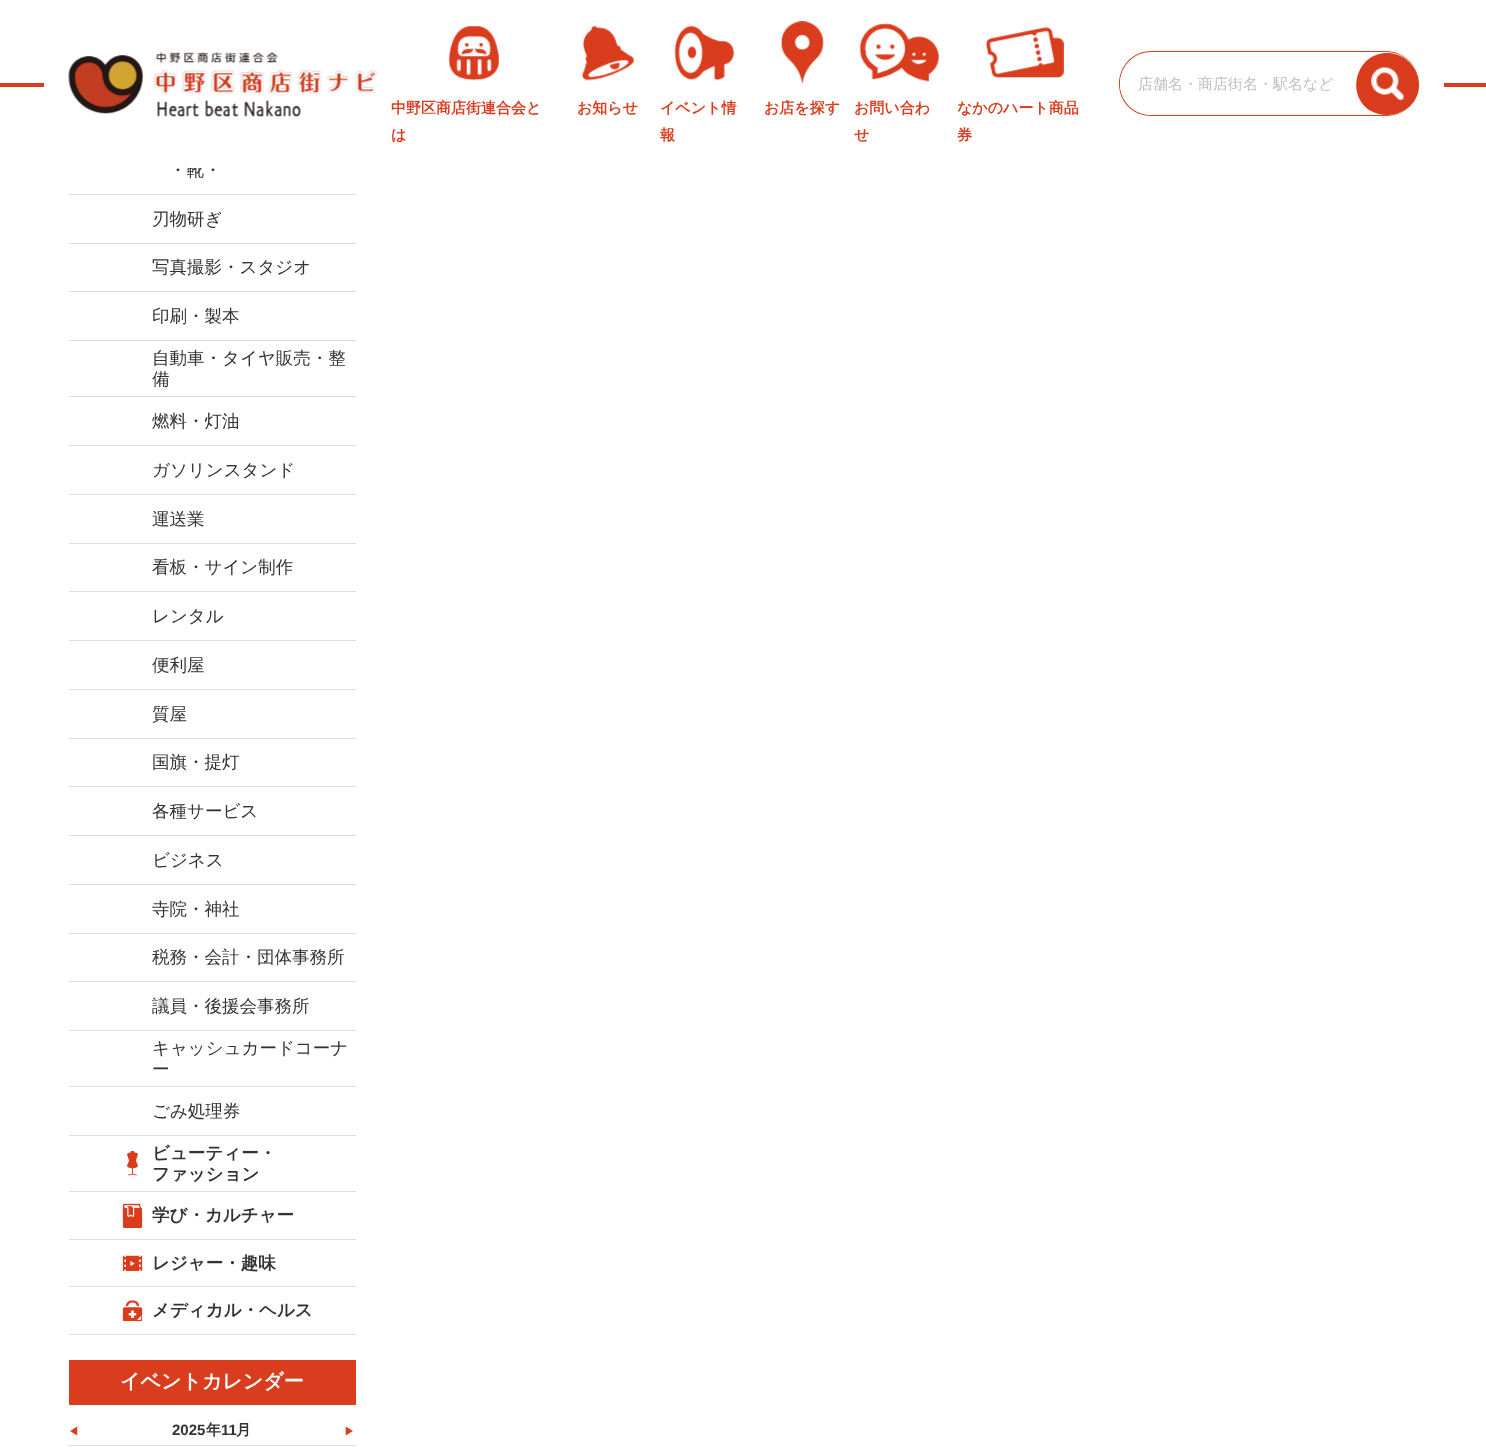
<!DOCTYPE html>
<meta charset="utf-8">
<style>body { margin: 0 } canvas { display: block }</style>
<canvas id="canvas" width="1486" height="1456"></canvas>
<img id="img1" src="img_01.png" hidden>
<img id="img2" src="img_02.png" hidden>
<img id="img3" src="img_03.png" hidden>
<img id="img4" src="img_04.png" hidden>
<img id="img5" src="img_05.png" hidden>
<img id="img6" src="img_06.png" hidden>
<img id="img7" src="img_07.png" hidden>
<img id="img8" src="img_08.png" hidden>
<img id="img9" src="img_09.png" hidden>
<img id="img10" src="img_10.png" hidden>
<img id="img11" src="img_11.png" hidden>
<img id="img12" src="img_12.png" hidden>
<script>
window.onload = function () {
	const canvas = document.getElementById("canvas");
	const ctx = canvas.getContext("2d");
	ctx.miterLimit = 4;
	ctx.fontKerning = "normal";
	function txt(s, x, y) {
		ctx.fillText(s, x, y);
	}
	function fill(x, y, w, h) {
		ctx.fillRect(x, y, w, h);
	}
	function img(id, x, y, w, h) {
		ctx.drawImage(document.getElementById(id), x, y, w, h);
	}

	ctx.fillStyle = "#FFFFFF";
	fill(0, 0, 1486, 1456);
	ctx.fillStyle = "#DA3C1E";
	fill(0, 83, 1486, 4);
	ctx.fillStyle = "#FFFFFF";
	fill(44, 83, 1400, 4);
	img("img1", 68, 52, 310, 65);
	ctx.fillStyle = "#DA3C1E";
	ctx.beginPath();
	ctx.moveTo(1151, 51);
	ctx.lineTo(1386, 51);
	ctx.bezierCurveTo(1404, 51, 1419, 66, 1419, 84);
	ctx.bezierCurveTo(1419, 102, 1404, 116, 1386, 116);
	ctx.lineTo(1151, 116);
	ctx.bezierCurveTo(1133, 116, 1119, 102, 1119, 84);
	ctx.bezierCurveTo(1119, 66, 1133, 51, 1151, 51);
	ctx.closePath();
	ctx.moveTo(1151, 52);
	ctx.lineTo(1386, 52);
	ctx.bezierCurveTo(1404, 52, 1419, 66, 1419, 84);
	ctx.bezierCurveTo(1419, 101, 1404, 115, 1386, 115);
	ctx.lineTo(1151, 115);
	ctx.bezierCurveTo(1134, 115, 1120, 101, 1120, 84);
	ctx.bezierCurveTo(1120, 66, 1134, 52, 1151, 52);
	ctx.closePath();
	ctx.fill("evenodd");
	ctx.fillStyle = "#FFFFFF";
	ctx.beginPath();
	ctx.moveTo(1151, 115);
	ctx.lineTo(1386, 115);
	ctx.bezierCurveTo(1404, 115, 1419, 101, 1419, 84);
	ctx.bezierCurveTo(1419, 68, 1407, 56, 1392, 53);
	ctx.lineTo(1146, 53);
	ctx.bezierCurveTo(1131, 56, 1120, 68, 1120, 84);
	ctx.bezierCurveTo(1120, 101, 1134, 115, 1151, 115);
	ctx.closePath();
	ctx.fill();
	ctx.fillStyle = "#DA3C1E";
	ctx.beginPath();
	ctx.moveTo(1387, 53);
	ctx.bezierCurveTo(1417, 53, 1432, 92, 1405, 110);
	ctx.bezierCurveTo(1399, 113, 1393, 115, 1387, 115);
	ctx.bezierCurveTo(1381, 115, 1374, 113, 1369, 110);
	ctx.bezierCurveTo(1345, 93, 1357, 53, 1387, 53);
	ctx.closePath();
	ctx.fill();
	img("img2", 1371, 67, 34, 34);
	img("img3", 449, 26, 50, 55);
	img("img4", 582, 26, 52, 55);
	img("img5", 674, 26, 60, 55);
	img("img6", 780, 21, 44, 63);
	img("img7", 859, 23, 80, 59);
	img("img8", 985, 27, 79, 51);
	ctx.fillStyle = "#DEDEDE";
	fill(69, 1334, 287, 1);
	fill(69, 194, 287, 1);
	fill(69, 243, 287, 1);
	fill(69, 291, 287, 1);
	fill(69, 340, 287, 1);
	fill(69, 396, 287, 1);
	fill(69, 445, 287, 1);
	fill(69, 494, 287, 1);
	fill(69, 543, 287, 1);
	fill(69, 591, 287, 1);
	fill(69, 640, 287, 1);
	fill(69, 689, 287, 1);
	fill(69, 738, 287, 1);
	fill(69, 786, 287, 1);
	fill(69, 835, 287, 1);
	fill(69, 884, 287, 1);
	fill(69, 933, 287, 1);
	fill(69, 981, 287, 1);
	fill(69, 1030, 287, 1);
	fill(69, 1086, 287, 1);
	fill(69, 1135, 287, 1);
	fill(69, 1191, 287, 1);
	img("img9", 127, 1151, 11, 25);
	fill(69, 1239, 287, 1);
	img("img10", 122, 1203, 21, 25);
	fill(69, 1286, 287, 1);
	img("img11", 122, 1255, 21, 16);
	img("img12", 122, 1300, 21, 22);
	ctx.fillStyle = "#DA3C1E";
	fill(69, 1360, 287, 45);
	ctx.fillStyle = "#DEDEDE";
	fill(68, 1445, 288, 1);
	ctx.font = "500 15px WenQuanYi Zen Hei";
	ctx.fillStyle = "#BEBEBE";
	txt("店舗名・商店街名・駅名など", 1138, 89);
	ctx.font = "bold 15px WenQuanYi Zen Hei";
	ctx.fillStyle = "#DA3C1E";
	txt("中野区商店街連合会と", 391, 113);
	txt("は", 391, 140);
	txt("お知らせ", 577, 113);
	txt("イベント情", 660, 113);
	txt("報", 660, 140);
	txt("お店を探す", 764, 113);
	txt("お問い合わ", 854, 113);
	txt("せ", 854, 140);
	txt("なかのハート商品", 957, 113);
	txt("券", 957, 140);
	ctx.font = "500 17.5px WenQuanYi Zen Hei";
	ctx.fillStyle = "#333333";
	txt("・靴・", 169, 176);
	ctx.fillStyle = "#FFFFFF";
	fill(187, 161, 17, 7);
	ctx.fillStyle = "#333333";
	txt("刃物研ぎ", 152, 225);
	txt("写真撮影・スタジオ", 152, 273);
	txt("印刷・製本", 152, 322);
	txt("自動車・タイヤ販売・整", 152, 364);
	txt("備", 152, 385);
	txt("燃料・灯油", 152, 427);
	txt("ガソリンスタンド", 152, 476);
	txt("運送業", 152, 525);
	txt("看板・サイン制作", 152, 573);
	txt("レンタル", 152, 622);
	txt("便利屋", 152, 671);
	txt("質屋", 152, 720);
	txt("国旗・提灯", 152, 768);
	txt("各種サービス", 152, 817);
	txt("ビジネス", 152, 866);
	txt("寺院・神社", 152, 915);
	txt("税務・会計・団体事務所", 152, 963);
	txt("議員・後援会事務所", 152, 1012);
	txt("キャッシュカードコーナ", 152, 1054);
	txt("ー", 152, 1075);
	txt("ごみ処理券", 152, 1117);
	ctx.font = "bold 17.5px WenQuanYi Zen Hei";
	txt("ビューティー・", 152, 1159);
	txt("ファッション", 152, 1180);
	txt("学び・カルチャー", 152, 1221);
	txt("レジャー・趣味", 152, 1269);
	txt("メディカル・ヘルス", 152, 1316);
	ctx.font = "bold 20px WenQuanYi Zen Hei";
	ctx.fillStyle = "#FFFFFF";
	txt("イベントカレンダー", 120, 1388);
	ctx.font = "500 11px WenQuanYi Zen Hei";
	ctx.fillStyle = "#DA3C1E";
	txt("◀", 68, 1435);
	ctx.font = "bold 15px Liberation Sans";
	ctx.fillStyle = "#333333";
	txt("2025", 172, 1435);
	ctx.font = "bold 15px WenQuanYi Zen Hei";
	txt("年", 206, 1435);
	ctx.font = "bold 15px Liberation Sans";
	txt("11", 221, 1435);
	ctx.font = "bold 15px WenQuanYi Zen Hei";
	txt("月", 236, 1435);
	ctx.font = "500 11px WenQuanYi Zen Hei";
	ctx.fillStyle = "#DA3C1E";
	txt("▶", 344, 1435);
};
</script>
